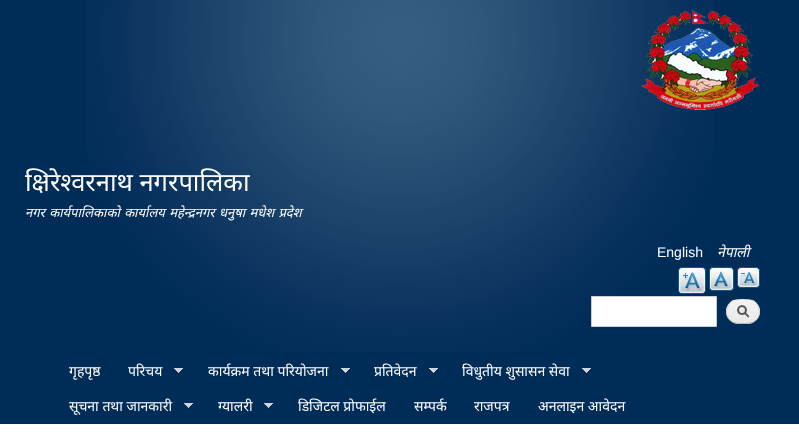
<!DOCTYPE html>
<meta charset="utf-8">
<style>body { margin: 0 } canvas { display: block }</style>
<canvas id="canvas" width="799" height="435"></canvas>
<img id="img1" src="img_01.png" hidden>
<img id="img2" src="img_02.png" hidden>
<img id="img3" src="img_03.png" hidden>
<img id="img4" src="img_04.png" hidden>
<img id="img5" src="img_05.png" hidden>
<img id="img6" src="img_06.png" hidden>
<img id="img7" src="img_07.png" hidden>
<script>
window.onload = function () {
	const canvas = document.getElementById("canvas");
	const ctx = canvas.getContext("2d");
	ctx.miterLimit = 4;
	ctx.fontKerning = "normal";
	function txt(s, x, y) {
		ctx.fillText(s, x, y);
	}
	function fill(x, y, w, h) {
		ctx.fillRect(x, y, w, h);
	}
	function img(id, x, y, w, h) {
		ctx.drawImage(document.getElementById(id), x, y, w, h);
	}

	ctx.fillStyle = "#FFFFFF";
	fill(0, 0, 799, 435);
	ctx.fillStyle = "#002C58";
	fill(0, 0, 799, 424);
	img("img1", 86, 0, 628, 352);
	img("img2", 641, 10, 119, 100);
	img("img3", 678, 267, 28, 27);
	img("img4", 709, 267, 25, 24);
	img("img5", 737, 267, 23, 21);
	ctx.fillStyle = "#FFFFFF";
	ctx.beginPath();
	ctx.rect(591.5, 296.5, 125, 30);
	ctx.fill();
	ctx.strokeStyle = "#CCCCCC";
	ctx.stroke();
	img("img6", 726, 300, 34, 24);
	ctx.beginPath();
	ctx.moveTo(730, 303);
	ctx.bezierCurveTo(733.5, 299.5, 738, 299.5, 743, 299.5);
	ctx.bezierCurveTo(748, 299.5, 752.5, 299.5, 756, 303);
	ctx.strokeStyle = "#E4E4E4";
	ctx.stroke();
	ctx.beginPath();
	ctx.moveTo(756, 303);
	ctx.bezierCurveTo(760.5, 307.5, 760.5, 315.5, 756, 320);
	ctx.strokeStyle = "#D2D2D2";
	ctx.stroke();
	ctx.beginPath();
	ctx.moveTo(756, 320);
	ctx.bezierCurveTo(752.5, 323.5, 748, 323.5, 743, 323.5);
	ctx.bezierCurveTo(738, 323.5, 733.5, 323.5, 730, 320);
	ctx.strokeStyle = "#B4B4B4";
	ctx.stroke();
	ctx.beginPath();
	ctx.moveTo(730, 320);
	ctx.bezierCurveTo(725.5, 315.5, 725.5, 307.5, 730, 303);
	ctx.strokeStyle = "#D2D2D2";
	ctx.stroke();
	img("img7", 174, 368, 9, 5);
	img("img7", 341, 368, 9, 5);
	img("img7", 429, 368, 9, 5);
	img("img7", 582, 368, 9, 5);
	img("img7", 184, 403, 9, 5);
	img("img7", 264, 403, 9, 5);
	ctx.font = "25.5px Noto Sans";
	ctx.fillStyle = "#FFFEFF";
	txt("क्षिरेश्वरनाथ नगरपालिका", 25, 191);
	ctx.wordSpacing = "1px";
	ctx.font = "italic 13px Noto Sans";
	txt("नगर कार्यपालिकाको कार्यालय महेन्द्रनगर धनुषा मधेश प्रदेश", 25, 217);
	ctx.wordSpacing = "0px";
	ctx.font = "14px Liberation Sans";
	txt("English", 657, 257);
	ctx.font = "italic 14px Noto Sans";
	txt("नेपाली", 717, 257);
	ctx.font = "14px Noto Sans";
	txt("गृहपृष्ठ", 69, 376);
	txt("परिचय", 128, 376);
	txt("कार्यक्रम तथा परियोजना", 208, 376);
	txt("प्रतिवेदन", 374, 376);
	txt("विधुतीय शुसासन सेवा", 462, 376);
	txt("सूचना तथा जानकारी", 69, 411);
	txt("ग्यालरी", 218, 411);
	txt("डिजिटल प्रोफाईल", 298, 411);
	txt("सम्पर्क", 414, 411);
	txt("राजपत्र", 474, 411);
	txt("अनलाइन आवेदन", 538, 411);
};
</script>
